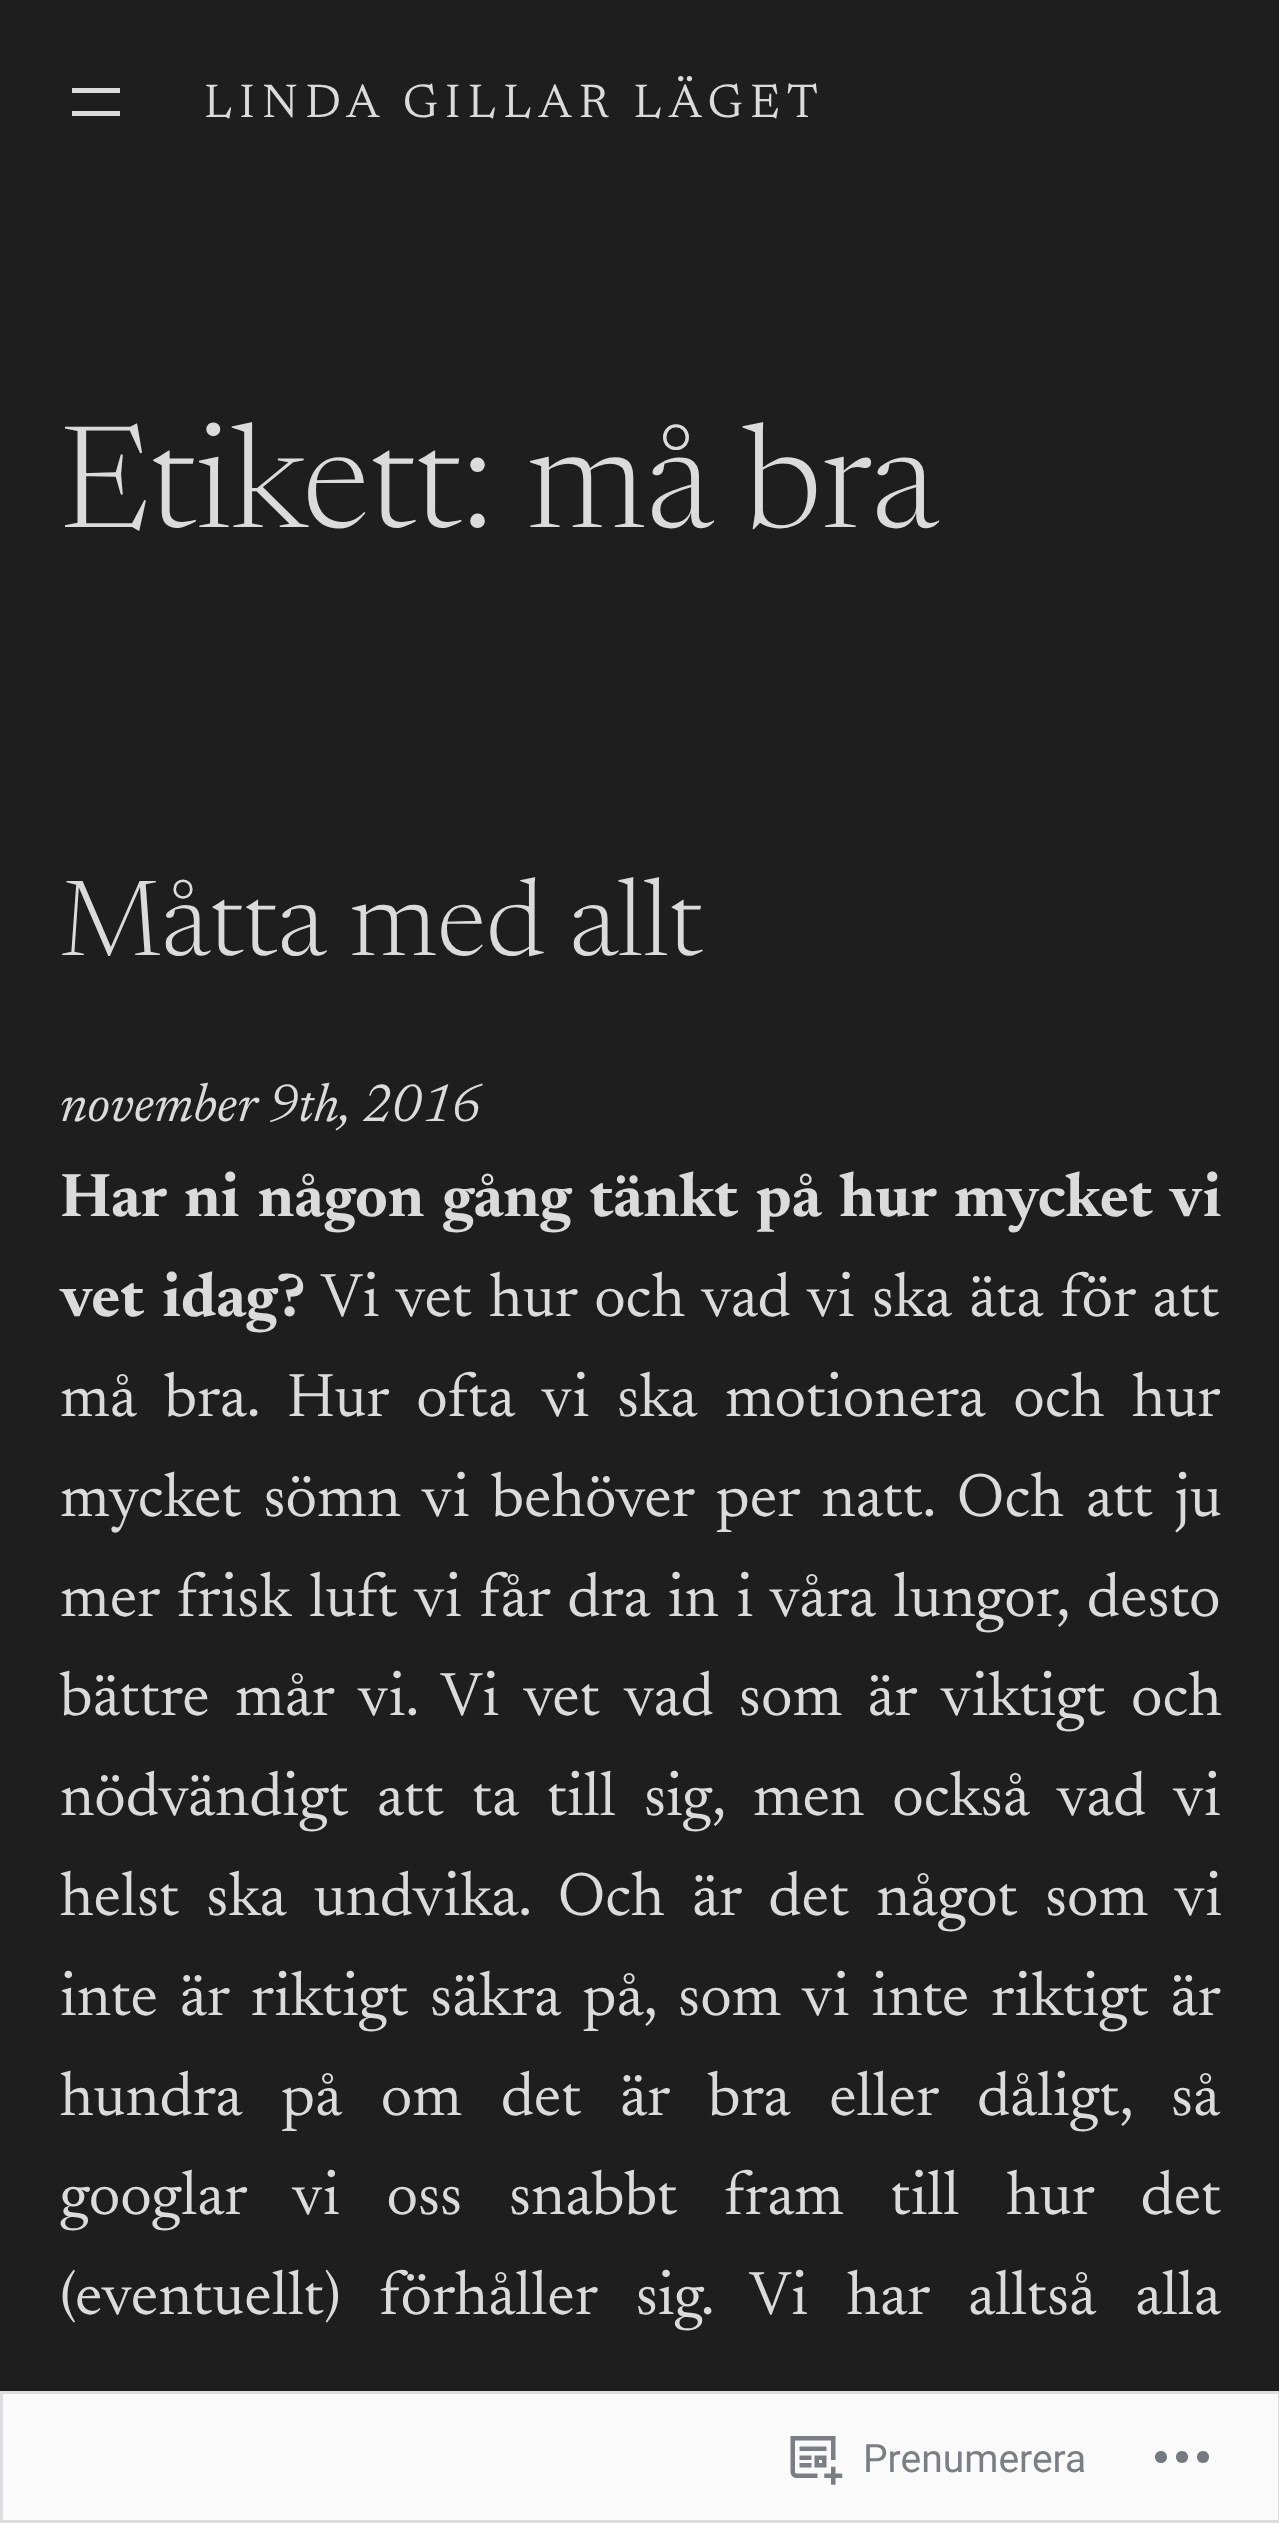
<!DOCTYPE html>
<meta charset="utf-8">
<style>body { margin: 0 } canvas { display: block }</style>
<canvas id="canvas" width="1279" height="2523"></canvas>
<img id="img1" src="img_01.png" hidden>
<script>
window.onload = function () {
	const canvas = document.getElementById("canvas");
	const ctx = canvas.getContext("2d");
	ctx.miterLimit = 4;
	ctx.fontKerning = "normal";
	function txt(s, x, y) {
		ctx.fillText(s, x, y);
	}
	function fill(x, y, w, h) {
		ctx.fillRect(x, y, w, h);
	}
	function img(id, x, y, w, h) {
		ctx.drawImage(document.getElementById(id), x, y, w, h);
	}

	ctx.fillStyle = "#1E1E1E";
	fill(0, 0, 1279, 2523);
	ctx.fillStyle = "#DBDBDB";
	fill(72, 88, 48, 5);
	fill(72, 111, 48, 5);
	ctx.fillStyle = "rgba(255, 255, 255, 0.98)";
	fill(0, 2391, 1279, 132);
	ctx.strokeStyle = "rgba(220, 220, 222, 0.98)";
	ctx.lineWidth = 3;
	ctx.strokeRect(1.5, 2392.5, 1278, 129);
	img("img1", 790, 2436, 53, 49);
	ctx.fillStyle = "#767A80";
	ctx.beginPath();
	ctx.moveTo(1167, 2457);
	ctx.bezierCurveTo(1167, 2465, 1155, 2465, 1155, 2457);
	ctx.bezierCurveTo(1155, 2449, 1167, 2449, 1167, 2457);
	ctx.closePath();
	ctx.moveTo(1203, 2451);
	ctx.bezierCurveTo(1195, 2451, 1195, 2463, 1203, 2463);
	ctx.bezierCurveTo(1211, 2463, 1211, 2451, 1203, 2451);
	ctx.closePath();
	ctx.moveTo(1182, 2451);
	ctx.bezierCurveTo(1174, 2451, 1174, 2463, 1182, 2463);
	ctx.bezierCurveTo(1190, 2463, 1190, 2451, 1182, 2451);
	ctx.closePath();
	ctx.fill();
	ctx.letterSpacing = "7.25px";
	ctx.font = "48px Newsreader";
	ctx.fillStyle = "#DBDBDB";
	txt("LINDA GILLAR LÄGET", 204, 117);
	ctx.letterSpacing = "0px";
	ctx.font = "300 144px Newsreader";
	txt("Etikett: må bra", 60, 527);
	ctx.font = "300 108px 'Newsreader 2'";
	txt("Måtta med allt", 60, 955);
	ctx.font = "italic 54px Newsreader";
	txt("november 9th, 2016", 60, 1121);
	ctx.wordSpacing = "5.5px";
	ctx.font = "bold 62.4px Newsreader";
	txt("Har ni någon gång tänkt på hur mycket vi", 60, 1216);
	txt("vet idag?", 60, 1316);
	ctx.wordSpacing = "3.5px";
	ctx.font = "62.4px Newsreader";
	txt("Vi vet hur och vad vi ska äta för att", 321, 1316);
	ctx.wordSpacing = "14px";
	txt("må bra. Hur ofta vi ska motionera och hur", 60, 1416);
	ctx.wordSpacing = "8.25px";
	txt("mycket sömn vi behöver per natt. Och att ju", 60, 1516);
	ctx.wordSpacing = "3.9px";
	txt("mer frisk luft vi får dra in i våra lungor, desto", 60, 1616);
	ctx.wordSpacing = "11.5px";
	txt("bättre mår vi. Vi vet vad som är viktigt och", 60, 1715);
	ctx.wordSpacing = "14.25px";
	txt("nödvändigt att ta till sig, men också vad vi", 60, 1815);
	ctx.wordSpacing = "13.5px";
	txt("helst ska undvika. Och är det något som vi", 60, 1915);
	ctx.wordSpacing = "8px";
	txt("inte är riktigt säkra på, som vi inte riktigt är", 60, 2015);
	ctx.wordSpacing = "25px";
	txt("hundra på om det är bra eller dåligt, så", 60, 2115);
	ctx.wordSpacing = "33px";
	txt("googlar vi oss snabbt fram till hur det", 60, 2214);
	ctx.wordSpacing = "25px";
	txt("(eventuellt) förhåller sig. Vi har alltså alla", 60, 2314);
	ctx.wordSpacing = "0px";
	ctx.font = "39px Roboto";
	ctx.fillStyle = "#7B7F84";
	txt("Prenumerera", 863, 2472);
};
</script>
